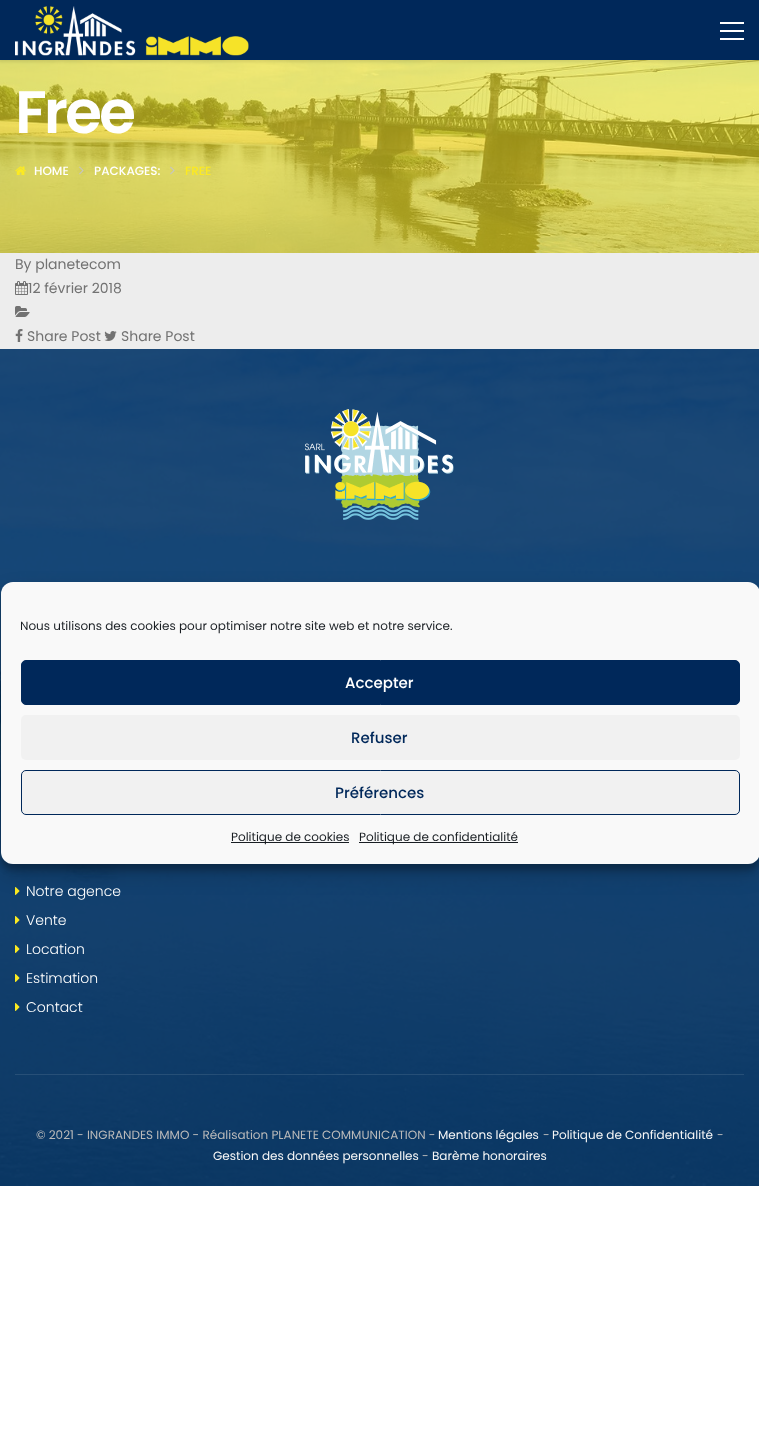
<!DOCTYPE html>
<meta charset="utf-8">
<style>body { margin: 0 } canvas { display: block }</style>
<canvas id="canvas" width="759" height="1446"></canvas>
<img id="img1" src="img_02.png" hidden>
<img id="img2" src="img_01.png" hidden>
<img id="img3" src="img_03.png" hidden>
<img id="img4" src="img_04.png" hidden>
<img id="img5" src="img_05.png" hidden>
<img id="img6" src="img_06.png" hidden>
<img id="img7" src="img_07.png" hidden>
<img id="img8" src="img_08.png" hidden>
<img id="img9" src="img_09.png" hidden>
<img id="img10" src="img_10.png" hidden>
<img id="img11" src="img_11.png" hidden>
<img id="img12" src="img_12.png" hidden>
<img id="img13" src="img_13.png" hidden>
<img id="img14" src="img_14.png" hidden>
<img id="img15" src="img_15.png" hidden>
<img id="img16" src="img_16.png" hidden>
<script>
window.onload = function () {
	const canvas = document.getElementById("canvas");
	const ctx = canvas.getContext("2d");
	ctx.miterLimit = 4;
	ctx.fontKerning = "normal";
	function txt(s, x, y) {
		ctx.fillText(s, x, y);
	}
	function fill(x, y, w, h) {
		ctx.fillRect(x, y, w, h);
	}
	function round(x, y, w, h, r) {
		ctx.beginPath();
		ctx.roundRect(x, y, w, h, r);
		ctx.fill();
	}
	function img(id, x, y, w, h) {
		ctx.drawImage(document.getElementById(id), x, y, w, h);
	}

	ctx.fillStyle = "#FFFFFF";
	fill(0, 0, 759, 1446);
	img("img1", 0, 60, 759, 193);
	ctx.fillStyle = "rgba(0, 0, 0, 0.1)";
	ctx.filter = "blur(1.5px)";
	ctx.beginPath();
	ctx.rect(-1, -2, 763, 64);
	ctx.fill();
	ctx.filter = "none";
	ctx.fillStyle = "#00285A";
	fill(0, 0, 759, 60);
	img("img2", 15, 6, 234, 50);
	ctx.fillStyle = "#FFFFFF";
	fill(720, 22, 24, 2);
	fill(720, 30, 24, 2);
	fill(720, 38, 24, 2);
	img("img3", 15, 166, 11, 9);
	img("img4", 79, 166, 5, 9);
	img("img5", 170, 166, 5, 9);
	ctx.fillStyle = "#EDEDED";
	fill(0, 253, 759, 96);
	img("img6", 15, 281, 13, 14);
	img("img7", 15, 306, 15, 11);
	img("img8", 15, 329, 8, 13);
	img("img9", 104, 331, 13, 10);
	img("img10", 0, 349, 759, 837);
	img("img11", 305, 409, 149, 111);
	img("img12", 15, 887, 5, 8);
	img("img13", 15, 916, 5, 8);
	img("img14", 15, 945, 5, 8);
	img("img15", 15, 974, 5, 8);
	img("img16", 15, 1003, 5, 8);
	ctx.fillStyle = "rgba(255, 255, 255, 0.1)";
	fill(15, 1074, 729, 1);
	ctx.save();
	ctx.beginPath();
	ctx.moveTo(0, 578);
	ctx.lineTo(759, 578);
	ctx.lineTo(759, 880);
	ctx.lineTo(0, 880);
	ctx.closePath();
	ctx.moveTo(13, 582);
	ctx.lineTo(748, 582);
	ctx.bezierCurveTo(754.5, 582, 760, 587.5, 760, 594);
	ctx.lineTo(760, 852);
	ctx.bezierCurveTo(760, 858.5, 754.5, 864, 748, 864);
	ctx.lineTo(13, 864);
	ctx.bezierCurveTo(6.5, 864, 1, 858.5, 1, 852);
	ctx.lineTo(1, 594);
	ctx.bezierCurveTo(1, 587.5, 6.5, 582, 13, 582);
	ctx.closePath();
	ctx.clip("evenodd");
	ctx.fillStyle = "rgba(0, 0, 0, 0.23)";
	ctx.filter = "blur(3px)";
	ctx.beginPath();
	ctx.roundRect(1, 588, 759, 282, 12);
	ctx.fill();
	ctx.filter = "none";
	ctx.restore();
	ctx.save();
	ctx.beginPath();
	ctx.moveTo(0, 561);
	ctx.lineTo(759, 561);
	ctx.lineTo(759, 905);
	ctx.lineTo(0, 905);
	ctx.closePath();
	ctx.moveTo(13, 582);
	ctx.lineTo(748, 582);
	ctx.bezierCurveTo(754.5, 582, 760, 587.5, 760, 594);
	ctx.lineTo(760, 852);
	ctx.bezierCurveTo(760, 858.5, 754.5, 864, 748, 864);
	ctx.lineTo(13, 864);
	ctx.bezierCurveTo(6.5, 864, 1, 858.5, 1, 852);
	ctx.lineTo(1, 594);
	ctx.bezierCurveTo(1, 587.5, 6.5, 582, 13, 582);
	ctx.closePath();
	ctx.clip("evenodd");
	ctx.fillStyle = "rgba(0, 0, 0, 0.19)";
	ctx.filter = "blur(10px)";
	ctx.beginPath();
	ctx.roundRect(1, 592, 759, 282, 12);
	ctx.fill();
	ctx.filter = "none";
	ctx.restore();
	ctx.fillStyle = "#F9F9F9";
	round(1, 582, 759, 282, 12);
	ctx.fillStyle = "#00285A";
	ctx.beginPath();
	ctx.roundRect(21.5, 660.5, 718, 44, 4.5);
	ctx.fill();
	ctx.strokeStyle = "#00285A";
	ctx.stroke();
	ctx.fillStyle = "#F1F1F1";
	round(21, 715, 719, 45, 5);
	ctx.beginPath();
	ctx.roundRect(21.5, 770.5, 718, 44, 4.5);
	ctx.fill();
	ctx.stroke();
	ctx.fillStyle = "#191E23";
	fill(231, 842, 118, 1);
	fill(359, 842, 159, 1);
	ctx.letterSpacing = "-3px";
	ctx.font = "600 60px Poppins";
	ctx.fillStyle = "#FFFFFF";
	txt("Free", 15, 133);
	ctx.letterSpacing = "0px";
	ctx.font = "500 12px Poppins";
	txt("HOME", 34, 175);
	txt("PACKAGES:", 94, 175);
	ctx.fillStyle = "#FCEA21";
	txt("FREE", 185, 175);
	ctx.font = "14px Poppins";
	ctx.fillStyle = "#727272";
	txt("By planetecom", 15, 269);
	txt("12 février 2018", 28, 293);
	txt("Share Post", 27, 341);
	txt("Share Post", 121, 341);
	ctx.font = "300 14px Poppins";
	ctx.fillStyle = "#FFFFFF";
	txt("Notre agence", 26, 896);
	txt("Vente", 26, 925);
	txt("Location", 26, 954);
	txt("Estimation", 26, 983);
	txt("Contact", 26, 1012);
	ctx.font = "12px Poppins";
	ctx.fillStyle = "#BABABA";
	txt("© 2021 - INGRANDES IMMO - Réalisation PLANETE COMMUNICATION -", 36, 1139);
	ctx.fillStyle = "#F7F7F7";
	txt("Mentions légales", 438, 1139);
	ctx.fillStyle = "#BABABA";
	txt("-", 543, 1139);
	ctx.fillStyle = "#F7F7F7";
	txt("Politique de Confidentialité", 552, 1139);
	ctx.fillStyle = "#BABABA";
	txt("-", 717, 1139);
	ctx.fillStyle = "#F7F7F7";
	txt("Gestion des données personnelles", 213, 1160);
	ctx.fillStyle = "#BABABA";
	txt("-", 422, 1160);
	ctx.fillStyle = "#F7F7F7";
	txt("Barème honoraires", 432, 1160);
	ctx.save();
	ctx.beginPath();
	ctx.rect(21, 617, 719, 23);
	ctx.clip();
	ctx.fillStyle = "#191E23";
	txt("Nous utilisons des cookies pour optimiser notre site web et notre service.", 20, 630);
	ctx.restore();
	ctx.font = "500 15px Poppins";
	ctx.fillStyle = "#FFFFFF";
	txt("Accepter", 345, 688);
	ctx.fillStyle = "#00285A";
	txt("Refuser", 351, 743);
	txt("Préférences", 335, 798);
	ctx.font = "12px Poppins";
	ctx.fillStyle = "#191E23";
	txt("Politique de cookies", 231, 841);
	txt("Politique de confidentialité", 359, 841);
};
</script>
